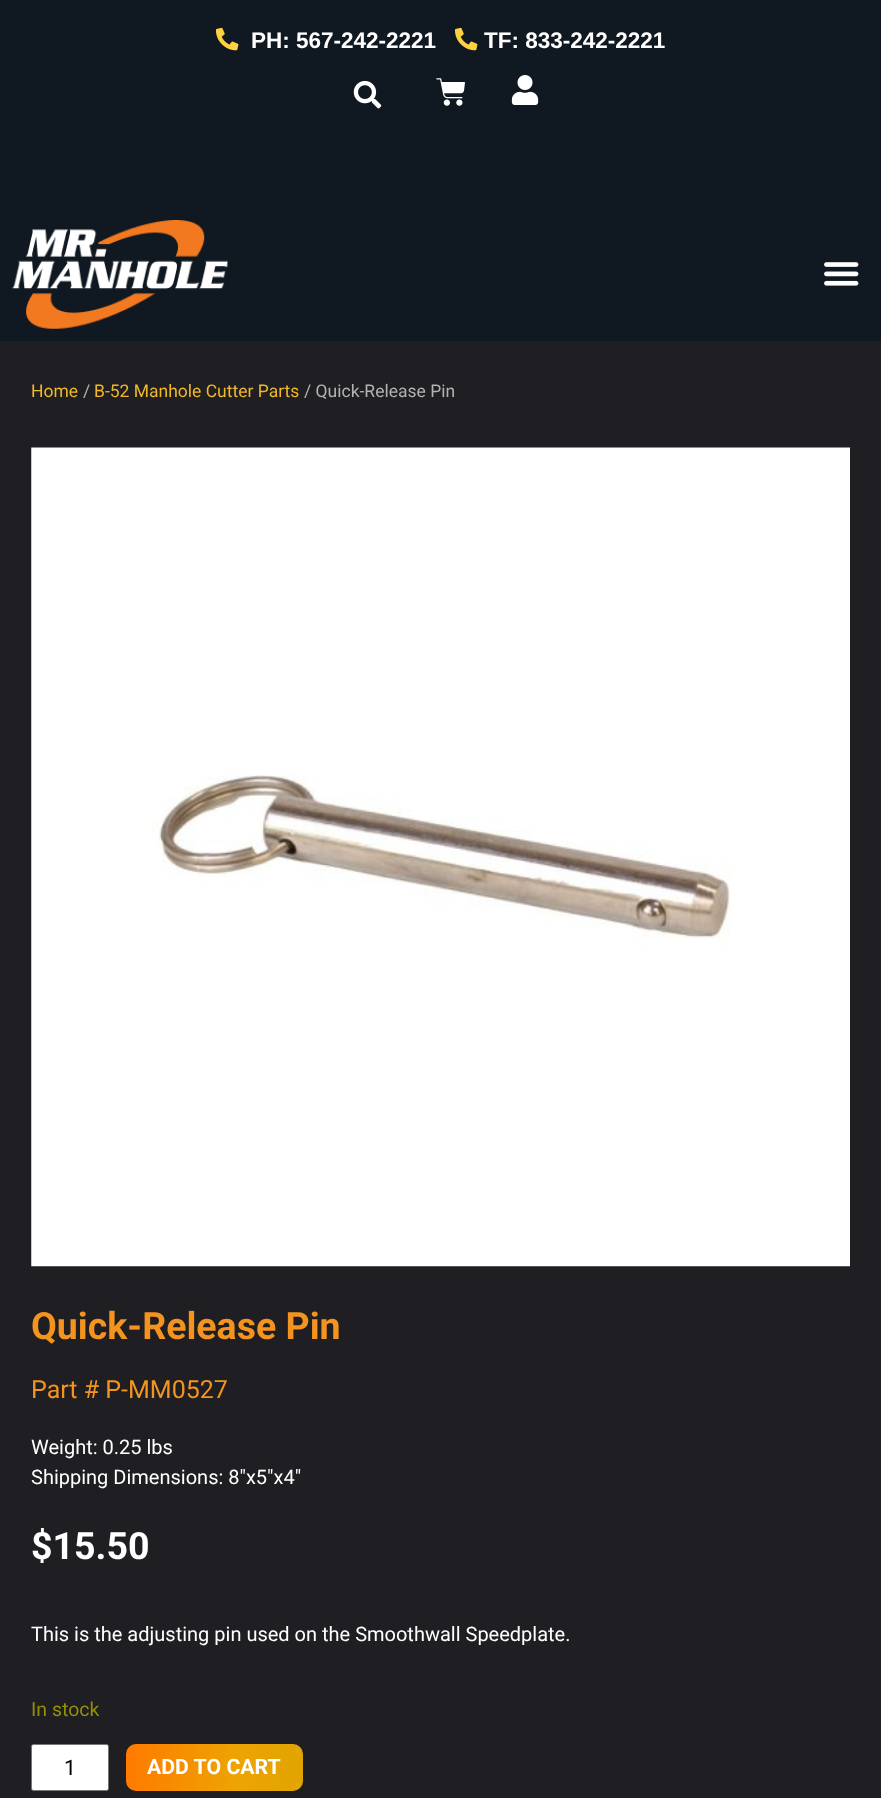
<!DOCTYPE html>
<meta charset="utf-8">
<style>body { margin: 0 } canvas { display: block }</style>
<canvas id="canvas" width="881" height="1798"></canvas>
<img id="img1" src="img_01.png" hidden>
<img id="img2" src="img_02.png" hidden>
<img id="img3" src="img_03.png" hidden>
<img id="img4" src="img_04.png" hidden>
<img id="img5" src="img_05.png" hidden>
<img id="img6" src="img_06.png" hidden>
<img id="img7" src="img_07.png" hidden>
<img id="img8" src="img_08.png" hidden>
<script>
window.onload = function () {
	const canvas = document.getElementById("canvas");
	const ctx = canvas.getContext("2d");
	ctx.miterLimit = 4;
	ctx.fontKerning = "normal";
	function txt(s, x, y) {
		ctx.fillText(s, x, y);
	}
	function fill(x, y, w, h) {
		ctx.fillRect(x, y, w, h);
	}
	function round(x, y, w, h, r) {
		ctx.beginPath();
		ctx.roundRect(x, y, w, h, r);
		ctx.fill();
	}
	function img(id, x, y, w, h) {
		ctx.drawImage(document.getElementById(id), x, y, w, h);
	}
	let gradient;

	ctx.fillStyle = "#101921";
	fill(0, 0, 881, 1798);
	img("img1", 215, 27, 24, 24);
	img("img2", 455, 27, 23, 24);
	img("img3", 353, 80, 29, 29);
	img("img4", 436, 78, 29, 28);
	img("img5", 511, 75, 28, 30);
	img("img6", 12, 220, 216, 109);
	img("img7", 824, 262, 35, 24);
	ctx.fillStyle = "#1E1E23";
	fill(0, 341, 881, 1457);
	img("img8", 31, 447, 819, 820);
	ctx.fillStyle = "#FFFFFF";
	ctx.beginPath();
	ctx.roundRect(31.5, 1744.5, 77, 46, 2);
	ctx.fill();
	ctx.strokeStyle = "#767676";
	ctx.stroke();
	gradient = ctx.createLinearGradient(126, 1768, 303, 1768);
	gradient.addColorStop(0, "#FF7A00");
	gradient.addColorStop(0.63, "#EDA403");
	gradient.addColorStop(1, "#E0A401");
	ctx.fillStyle = gradient;
	round(126, 1744, 177, 47, 10);
	ctx.font = "bold 22.5px Liberation Sans";
	ctx.fillStyle = "#FFFFFF";
	txt("PH: 567-242-2221", 251, 48);
	txt("TF: 833-242-2221", 484, 48);
	ctx.font = "17.5px Roboto";
	ctx.fillStyle = "#F2B826";
	txt("Home", 31, 397);
	ctx.fillStyle = "#B3B3B3";
	txt("/", 83, 397);
	ctx.fillStyle = "#F2B826";
	txt("B-52 Manhole Cutter Parts", 94, 397);
	ctx.fillStyle = "#B3B3B3";
	txt("/ Quick-Release Pin", 304, 397);
	ctx.font = "bold 37.5px Roboto";
	ctx.fillStyle = "#F4941F";
	txt("Quick-Release Pin", 31, 1339);
	ctx.font = "25px Roboto";
	txt("Part # P-MM0527", 31, 1398);
	ctx.font = "20px Roboto";
	ctx.fillStyle = "#FFFFFF";
	txt("Weight: 0.25 lbs", 31, 1454);
	txt("Shipping Dimensions: 8\"x5\"x4\"", 31, 1484);
	ctx.font = "bold 37.5px Roboto";
	txt("$15.50", 31, 1559);
	ctx.font = "20px Roboto";
	txt("This is the adjusting pin used on the Smoothwall Speedplate.", 31, 1641);
	ctx.font = "19.5px Roboto";
	ctx.fillStyle = "#958E09";
	txt("In stock", 31, 1716);
	ctx.font = "21.25px Roboto";
	ctx.fillStyle = "#000000";
	txt("1", 64, 1775);
	ctx.font = "bold 21.25px Roboto";
	ctx.fillStyle = "#FFFFFF";
	txt("ADD TO CART", 147, 1774);
};
</script>
